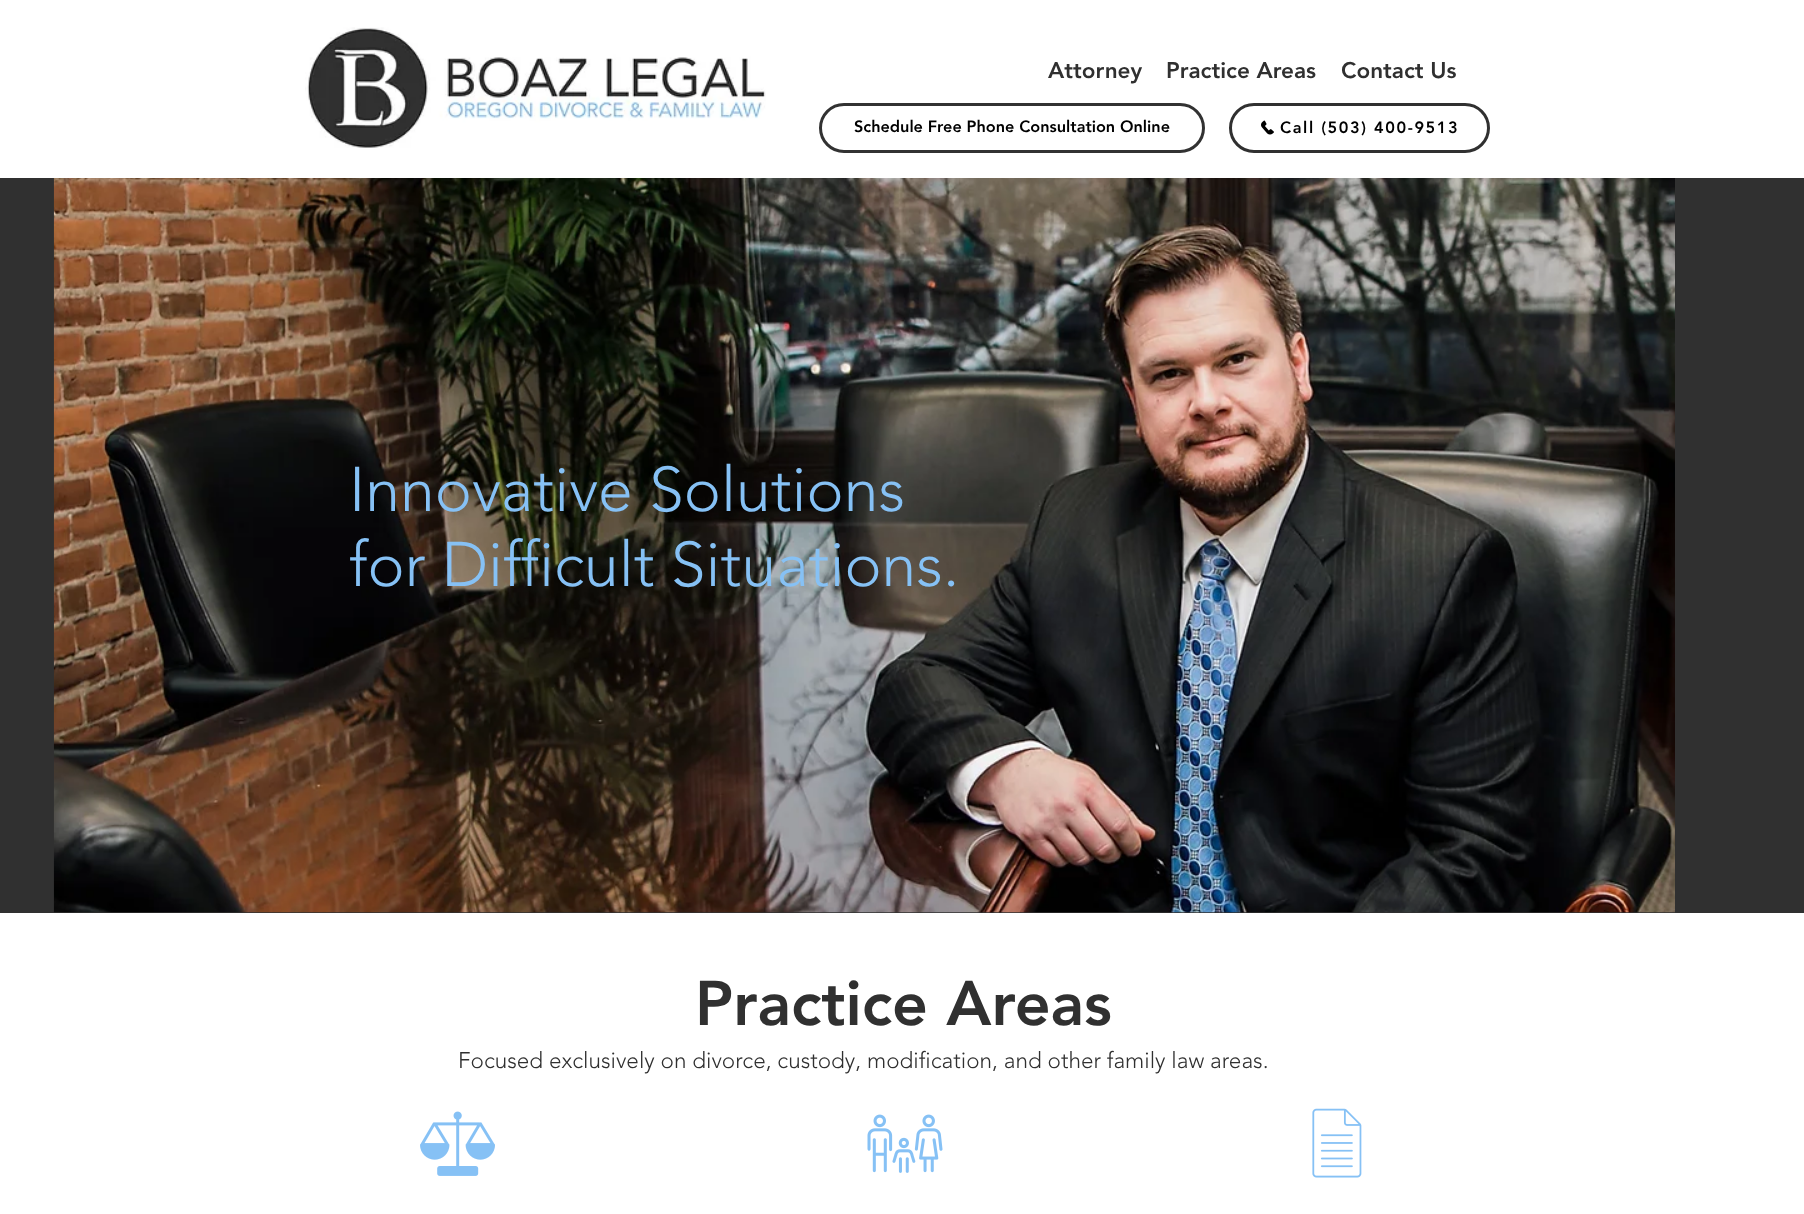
<!DOCTYPE html>
<meta charset="utf-8">
<style>body { margin: 0 } canvas { display: block }</style>
<canvas id="canvas" width="1804" height="1214"></canvas>
<img id="img1" src="img_01.png" hidden>
<img id="img2" src="img_02.png" hidden>
<img id="img3" src="img_03.png" hidden>
<img id="img4" src="img_04.png" hidden>
<img id="img5" src="img_05.png" hidden>
<img id="img6" src="img_06.png" hidden>
<script>
window.onload = function () {
	const canvas = document.getElementById("canvas");
	const ctx = canvas.getContext("2d");
	ctx.miterLimit = 4;
	ctx.fontKerning = "normal";
	function txt(s, x, y) {
		ctx.fillText(s, x, y);
	}
	function fill(x, y, w, h) {
		ctx.fillRect(x, y, w, h);
	}
	function img(id, x, y, w, h) {
		ctx.drawImage(document.getElementById(id), x, y, w, h);
	}

	ctx.fillStyle = "#FFFFFF";
	fill(0, 0, 1804, 1214);
	img("img1", 305, 27, 461, 121);
	ctx.beginPath();
	ctx.roundRect(820.5, 104.5, 383, 47, 23.5);
	ctx.strokeStyle = "#323232";
	ctx.lineWidth = 3;
	ctx.stroke();
	ctx.beginPath();
	ctx.roundRect(1230.5, 104.5, 258, 47, 23.5);
	ctx.strokeStyle = "#303030";
	ctx.stroke();
	img("img2", 1261, 120, 13, 15);
	ctx.fillStyle = "#303030";
	fill(0, 178, 1804, 735);
	img("img3", 53, 178, 1622, 735);
	img("img4", 420, 1111, 75, 65);
	img("img5", 867, 1114, 76, 59);
	img("img6", 1312, 1108, 50, 70);
	ctx.font = "900 22.5px 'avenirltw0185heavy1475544'";
	txt("Attorney", 1048, 78);
	txt("Practice Areas", 1166, 78);
	txt("Contact Us", 1341, 78);
	ctx.font = "900 16.25px 'avenirltw0185heavy1475544'";
	ctx.fillStyle = "#000000";
	txt("Schedule Free Phone Consultation Online", 854, 132);
	ctx.letterSpacing = "1.6px";
	txt("Call (503) 400-9513", 1280, 133);
	ctx.letterSpacing = "0px";
	ctx.font = "300 62.5px 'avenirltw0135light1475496'";
	ctx.fillStyle = "#86C1F5";
	txt("Innovative Solutions", 349, 511);
	txt("for Difficult Situations.", 349, 586);
	ctx.font = "900 62.5px 'avenirltw0185heavy1475544'";
	ctx.fillStyle = "#303030";
	txt("Practice Areas", 695, 1025);
	ctx.font = "300 22.5px 'avenirltw0135light1475496'";
	txt("Focused exclusively on divorce, custody, modification, and other family law areas.", 458, 1068);
};
</script>
